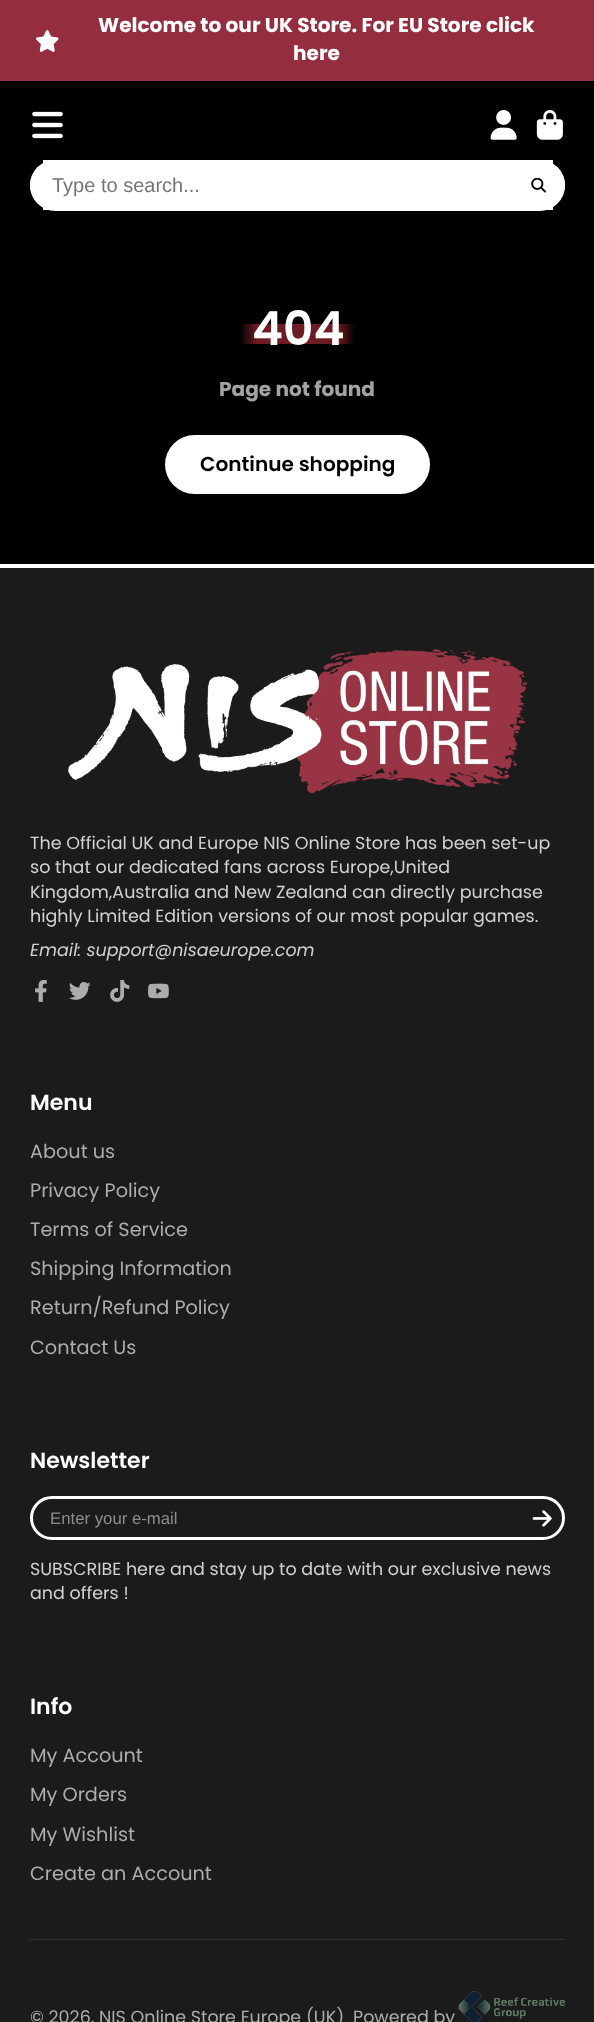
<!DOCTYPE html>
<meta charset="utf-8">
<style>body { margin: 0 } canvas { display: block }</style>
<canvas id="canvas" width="594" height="2022"></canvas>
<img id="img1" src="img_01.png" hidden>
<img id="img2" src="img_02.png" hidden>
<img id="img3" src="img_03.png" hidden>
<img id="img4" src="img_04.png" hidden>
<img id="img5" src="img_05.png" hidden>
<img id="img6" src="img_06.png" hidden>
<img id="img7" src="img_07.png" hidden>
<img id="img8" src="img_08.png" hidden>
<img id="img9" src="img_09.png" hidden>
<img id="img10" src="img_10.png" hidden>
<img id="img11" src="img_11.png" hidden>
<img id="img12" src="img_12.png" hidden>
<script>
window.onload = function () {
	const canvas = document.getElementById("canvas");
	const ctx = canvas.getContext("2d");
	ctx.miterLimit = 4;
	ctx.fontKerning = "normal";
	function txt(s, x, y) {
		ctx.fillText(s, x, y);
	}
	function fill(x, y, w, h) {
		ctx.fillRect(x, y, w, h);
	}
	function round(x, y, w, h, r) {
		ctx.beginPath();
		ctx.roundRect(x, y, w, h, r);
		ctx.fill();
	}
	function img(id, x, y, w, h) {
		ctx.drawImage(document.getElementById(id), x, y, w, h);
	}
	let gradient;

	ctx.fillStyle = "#000000";
	fill(0, 0, 594, 2022);
	ctx.fillStyle = "#942D3E";
	fill(0, 0, 594, 81);
	img("img1", 36, 30, 23, 22);
	img("img2", 32, 111, 31, 28);
	img("img3", 490, 110, 27, 30);
	img("img4", 536, 110, 27, 30);
	ctx.fillStyle = "#FFFFFF";
	round(30, 160, 535, 50, 25);
	fill(43, 160, 510, 50);
	round(30, 160, 535, 51, 25.5);
	img("img5", 531, 178, 15, 15);
	gradient = ctx.createLinearGradient(240, 334, 355, 334);
	gradient.addColorStop(0, "#000000");
	gradient.addColorStop(0.15, "#6E1B23");
	gradient.addColorStop(0.85, "#6E1B23");
	gradient.addColorStop(1, "#000000");
	ctx.fillStyle = gradient;
	fill(240, 324, 115, 20);
	ctx.fillStyle = "#FFFFFF";
	round(165, 435, 265, 59, 29.5);
	ctx.fillStyle = "#1B1B1B";
	fill(0, 568, 594, 1454);
	ctx.fillStyle = "#FFFFFF";
	fill(0, 564, 594, 4);
	img("img6", 68, 649, 460, 145);
	img("img7", 35, 980, 12, 22);
	img("img8", 69, 982, 22, 18);
	img("img9", 110, 980, 20, 22);
	img("img10", 148, 983, 21, 16);
	ctx.beginPath();
	ctx.roundRect(31.5, 1497.5, 532, 41, 20.5);
	ctx.strokeStyle = "#FFFFFF";
	ctx.lineWidth = 3;
	ctx.stroke();
	img("img11", 532, 1510, 20, 17);
	ctx.fillStyle = "#323232";
	fill(30, 1939, 535, 1);
	img("img12", 458, 1991, 107, 31);
	ctx.font = "bold 20.1px Poppins";
	ctx.fillStyle = "#FFFFFF";
	txt("Welcome to our UK Store. For EU Store click", 98, 32);
	txt("here", 293, 60);
	ctx.font = "20px Liberation Sans";
	ctx.fillStyle = "#757575";
	txt("Type to search...", 52, 192);
	ctx.font = "600 47px Poppins";
	ctx.fillStyle = "#FFFFFF";
	txt("404", 252, 345);
	ctx.font = "bold 20.1px Poppins";
	ctx.fillStyle = "#A3A3A3";
	txt("Page not found", 219, 396);
	ctx.font = "600 20.1px Poppins";
	ctx.fillStyle = "#000000";
	txt("Continue shopping", 200, 471);
	ctx.font = "17.5px Poppins";
	ctx.fillStyle = "#D1D1D1";
	txt("The Official UK and Europe NIS Online Store has been set-up", 30, 849);
	txt("so that our dedicated fans across Europe,United", 30, 873);
	txt("Kingdom,Australia and New Zealand can directly purchase", 30, 898);
	txt("highly Limited Edition versions of our most popular games.", 30, 922);
	ctx.font = "italic 17.5px Poppins";
	txt("Email: support@nisaeurope.com", 30, 956);
	ctx.font = "600 22px Poppins";
	ctx.fillStyle = "#FFFFFF";
	txt("Menu", 30, 1110);
	ctx.font = "19.25px Poppins";
	ctx.fillStyle = "#ADADAD";
	txt("About us", 30, 1158);
	txt("Privacy Policy", 30, 1197);
	txt("Terms of Service", 30, 1236);
	txt("Shipping Information", 30, 1275);
	txt("Return/Refund Policy", 30, 1314);
	txt("Contact Us", 30, 1354);
	ctx.font = "600 22px Poppins";
	ctx.fillStyle = "#FFFFFF";
	txt("Newsletter", 30, 1468);
	ctx.font = "16.75px Liberation Sans";
	ctx.fillStyle = "#8D8D8D";
	txt("Enter your e-mail", 50, 1524);
	ctx.font = "17.5px Poppins";
	ctx.fillStyle = "#D1D1D1";
	txt("SUBSCRIBE here and stay up to date with our exclusive news", 30, 1575);
	txt("and offers !", 30, 1599);
	ctx.font = "600 22px Poppins";
	ctx.fillStyle = "#FFFFFF";
	txt("Info", 30, 1714);
	ctx.font = "19.25px Poppins";
	ctx.fillStyle = "#ADADAD";
	txt("My Account", 30, 1762);
	txt("My Orders", 30, 1801);
	txt("My Wishlist", 30, 1841);
	txt("Create an Account", 30, 1880);
	ctx.font = "17.5px Poppins";
	txt("© 2026, NIS Online Store Europe (UK)", 30, 2023);
	txt("Powered by", 353, 2023);
};
</script>
